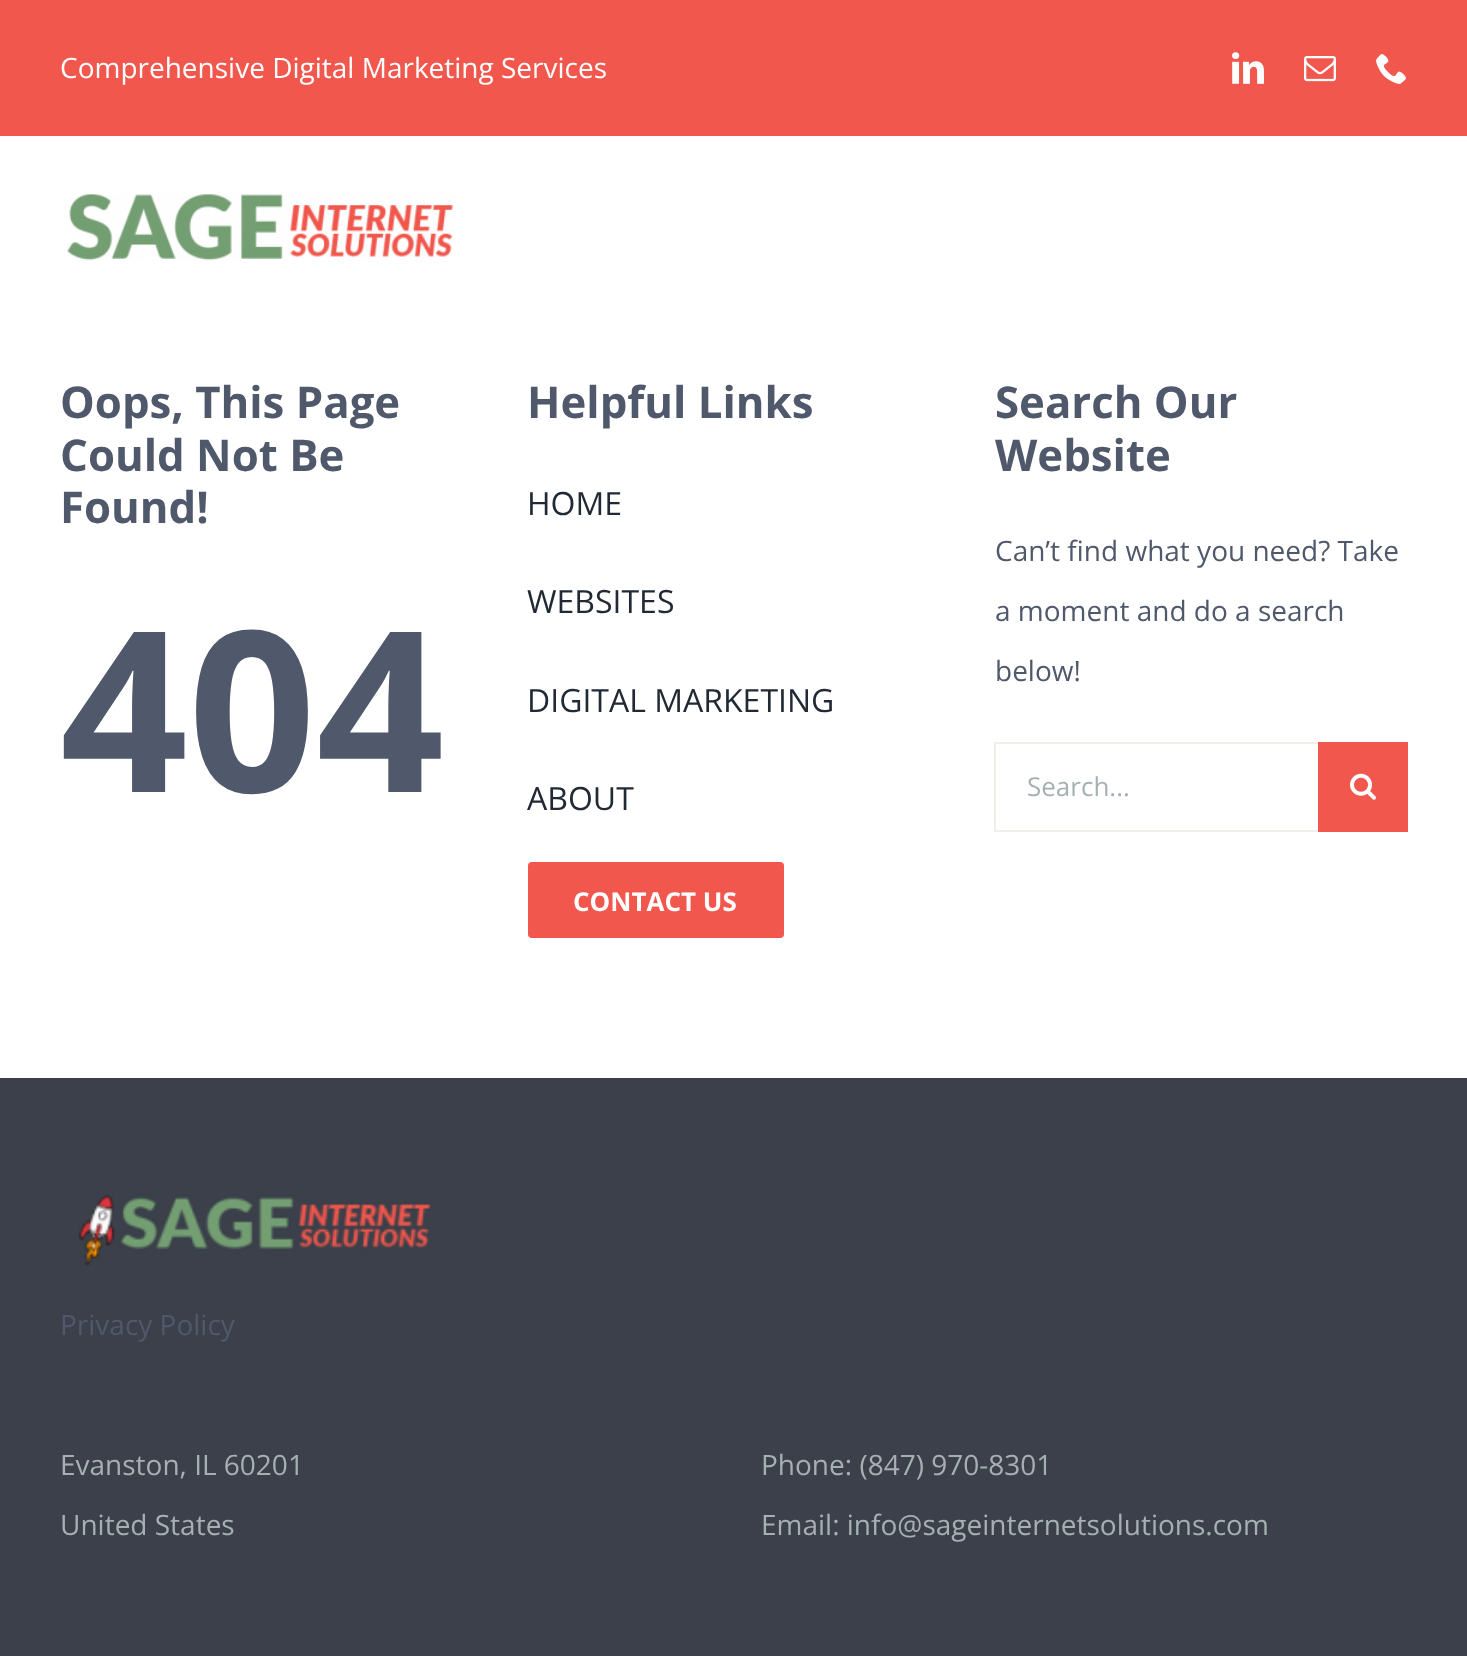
<!DOCTYPE html>
<meta charset="utf-8">
<style>body { margin: 0 } canvas { display: block }</style>
<canvas id="canvas" width="1467" height="1656"></canvas>
<img id="img1" src="img_01.png" hidden>
<img id="img2" src="img_02.png" hidden>
<img id="img3" src="img_03.png" hidden>
<img id="img4" src="img_04.png" hidden>
<img id="img5" src="img_05.png" hidden>
<img id="img6" src="img_06.png" hidden>
<script>
window.onload = function () {
	const canvas = document.getElementById("canvas");
	const ctx = canvas.getContext("2d");
	ctx.miterLimit = 4;
	ctx.fontKerning = "normal";
	function txt(s, x, y) {
		ctx.fillText(s, x, y);
	}
	function fill(x, y, w, h) {
		ctx.fillRect(x, y, w, h);
	}
	function round(x, y, w, h, r) {
		ctx.beginPath();
		ctx.roundRect(x, y, w, h, r);
		ctx.fill();
	}
	function img(id, x, y, w, h) {
		ctx.drawImage(document.getElementById(id), x, y, w, h);
	}

	ctx.fillStyle = "#FFFFFF";
	fill(0, 0, 1467, 1656);
	ctx.fillStyle = "#F1574D";
	fill(0, 0, 1467, 136);
	img("img1", 1232, 52, 32, 32);
	img("img2", 1304, 56, 32, 26);
	img("img3", 1376, 54, 30, 30);
	img("img4", 67, 194, 387, 67);
	round(528, 862, 256, 76, 4);
	ctx.fillStyle = "#EFEEE8";
	fill(994, 742, 324, 2);
	fill(994, 830, 324, 2);
	fill(994, 742, 2, 90);
	ctx.fillStyle = "#F1574D";
	fill(1318, 742, 90, 90);
	img("img5", 1350, 773, 26, 27);
	ctx.fillStyle = "#3B404A";
	fill(0, 1078, 1467, 578);
	img("img6", 78, 1194, 353, 72);
	ctx.font = "28px Open Sans";
	ctx.fillStyle = "#FFFFFF";
	txt("Comprehensive Digital Marketing Services", 60, 78);
	ctx.font = "bold 43.75px Open Sans";
	ctx.fillStyle = "#50586B";
	txt("Oops, This Page", 60, 418);
	txt("Could Not Be", 60, 471);
	txt("Found!", 60, 523);
	ctx.font = "bold 224px Open Sans";
	txt("404", 60, 792);
	ctx.font = "bold 43.75px Open Sans";
	txt("Helpful Links", 527, 418);
	ctx.font = "32px Open Sans";
	ctx.fillStyle = "#212934";
	txt("HOME", 527, 515);
	txt("WEBSITES", 527, 613);
	txt("DIGITAL MARKETING", 527, 712);
	txt("ABOUT", 527, 810);
	ctx.font = "bold 26px Open Sans";
	ctx.fillStyle = "#FFFFFF";
	txt("CONTACT US", 573, 911);
	ctx.font = "bold 43.75px Open Sans";
	ctx.fillStyle = "#50586B";
	txt("Search Our", 995, 418);
	txt("Website", 995, 471);
	ctx.font = "28px Open Sans";
	txt("Can’t find what you need? Take", 995, 561);
	txt("a moment and do a search", 995, 621);
	txt("below!", 995, 681);
	ctx.font = "26px Open Sans";
	ctx.fillStyle = "#A6B0B3";
	txt("Search...", 1027, 796);
	ctx.font = "28px Open Sans";
	ctx.fillStyle = "#50586B";
	txt("Privacy Policy", 60, 1335);
	ctx.fillStyle = "#A6B0B3";
	txt("Evanston, IL 60201", 60, 1475);
	txt("United States", 60, 1535);
	txt("Phone: (847) 970-8301", 761, 1475);
	txt("Email: info@sageinternetsolutions.com", 761, 1535);
};
</script>
